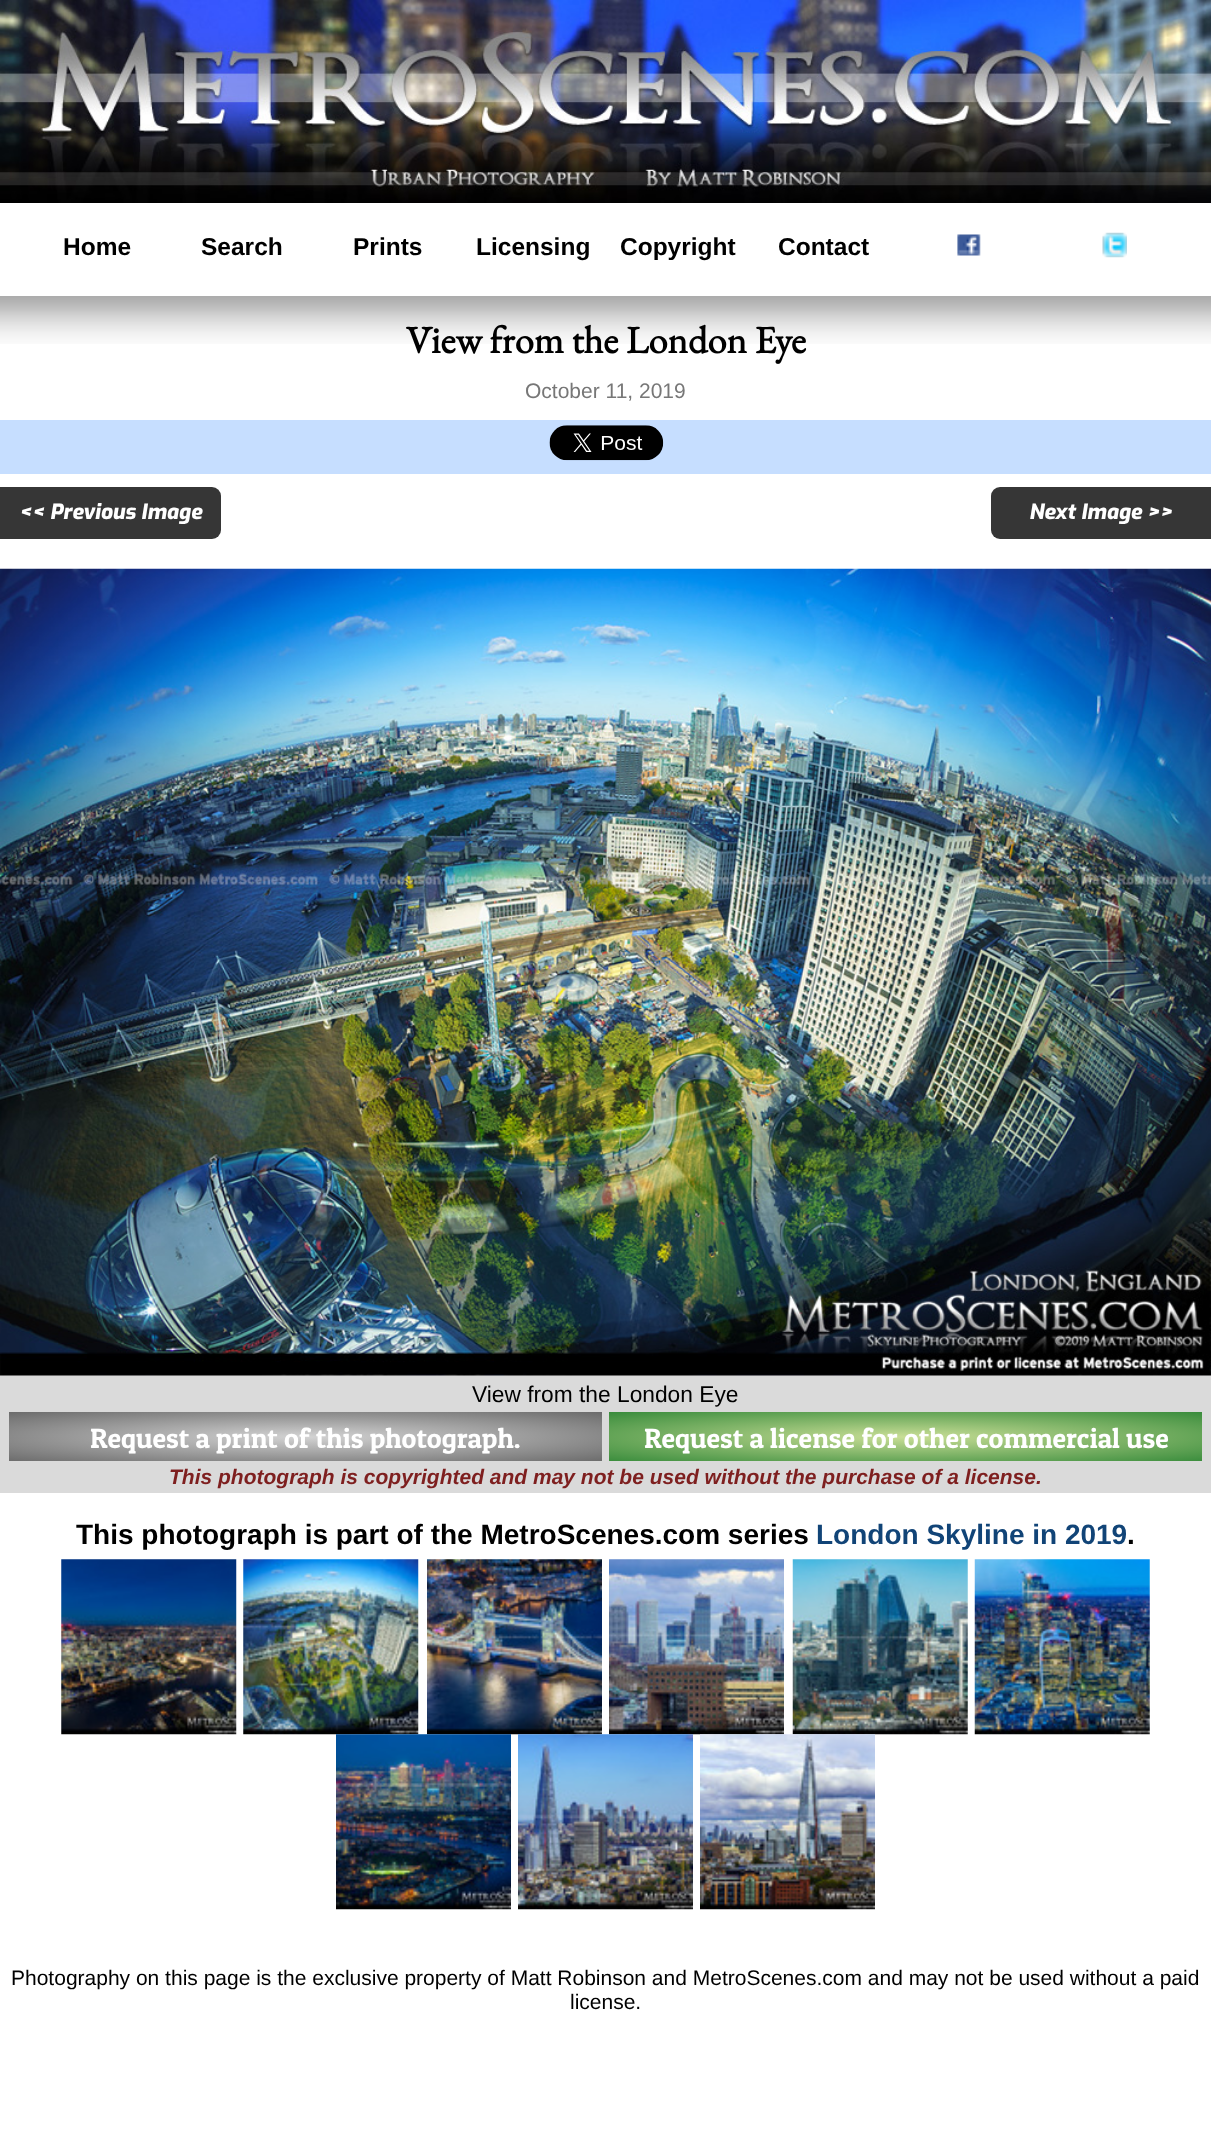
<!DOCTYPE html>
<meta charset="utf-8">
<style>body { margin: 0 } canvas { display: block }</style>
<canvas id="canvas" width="1211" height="2140"></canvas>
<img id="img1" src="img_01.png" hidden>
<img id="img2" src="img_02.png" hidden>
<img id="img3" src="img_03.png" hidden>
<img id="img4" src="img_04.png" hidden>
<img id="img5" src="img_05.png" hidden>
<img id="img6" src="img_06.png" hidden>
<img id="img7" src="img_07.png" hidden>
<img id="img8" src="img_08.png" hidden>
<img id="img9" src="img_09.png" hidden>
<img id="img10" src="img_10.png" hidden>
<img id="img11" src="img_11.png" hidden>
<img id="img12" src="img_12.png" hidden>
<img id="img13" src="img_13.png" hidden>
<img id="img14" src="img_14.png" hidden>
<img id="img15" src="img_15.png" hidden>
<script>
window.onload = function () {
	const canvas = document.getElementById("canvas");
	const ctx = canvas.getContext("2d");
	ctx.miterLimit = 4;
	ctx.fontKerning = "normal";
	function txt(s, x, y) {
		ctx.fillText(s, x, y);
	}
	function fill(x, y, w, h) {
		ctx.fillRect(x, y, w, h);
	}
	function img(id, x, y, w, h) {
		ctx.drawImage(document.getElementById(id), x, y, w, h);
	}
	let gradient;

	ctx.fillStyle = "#FFFFFF";
	fill(0, 0, 1211, 2140);
	img("img1", 0, 0, 1211, 203);
	img("img2", 957, 234, 24, 22);
	img("img3", 1102, 232, 25, 26);
	img("img4", 0, 296, 1211, 48);
	ctx.fillStyle = "#C6DEFF";
	fill(0, 420, 1211, 54);
	img("img5", 549, 425, 115, 36);
	ctx.fillStyle = "#363636";
	ctx.beginPath();
	ctx.roundRect(0, 487, 221, 52, [0, 9, 9, 0]);
	ctx.fill();
	ctx.beginPath();
	ctx.roundRect(991, 487, 220, 52, [9, 0, 0, 9]);
	ctx.fill();
	ctx.fillStyle = "#DADADA";
	fill(0, 1375, 1211, 118);
	img("img6", 0, 568, 1211, 808);
	gradient = ctx.createRadialGradient(305, 17202.94, 0, 305, 17202.94, 419);
	gradient.addColorStop(0, "#D3D3D3");
	gradient.addColorStop(1, "#6B6B6B");
	ctx.fillStyle = gradient;
	ctx.beginPath();
	ctx.rect(9, 1412, 593, 49);
	ctx.save();
	ctx.clip();
	ctx.scale(1, 35 / 419);
	ctx.fillRect(0, 0, 1211, 25619);
	ctx.restore();
	gradient = ctx.createRadialGradient(906, 17202.94, 0, 906, 17202.94, 419);
	gradient.addColorStop(0, "#C9DE96");
	gradient.addColorStop(1, "#398C3C");
	ctx.fillStyle = gradient;
	ctx.beginPath();
	ctx.rect(609, 1412, 593, 49);
	ctx.save();
	ctx.clip();
	ctx.scale(1, 35 / 419);
	ctx.fillRect(0, 0, 1211, 25619);
	ctx.restore();
	img("img7", 61, 1559, 176, 176);
	img("img8", 243, 1559, 176, 176);
	img("img9", 427, 1559, 175, 176);
	img("img10", 609, 1559, 175, 176);
	img("img11", 792, 1559, 176, 176);
	img("img12", 974, 1559, 176, 176);
	img("img13", 336, 1734, 175, 176);
	img("img14", 518, 1734, 175, 176);
	img("img15", 700, 1734, 175, 176);
	ctx.font = "bold 24.5px Liberation Sans";
	ctx.fillStyle = "#000000";
	txt("Home", 63, 255);
	txt("Search", 201, 255);
	txt("Prints", 353, 255);
	txt("Licensing", 476, 255);
	txt("Copyright", 620, 255);
	txt("Contact", 778, 255);
	ctx.font = "bold 38.5px EB Garamond";
	txt("View from the London Eye", 406, 353);
	ctx.font = "21px Liberation Sans";
	ctx.fillStyle = "#777777";
	txt("October 11, 2019", 525, 398);
	ctx.font = "italic 800 21px Exo";
	ctx.fillStyle = "#FFFFFF";
	txt("<< Previous Image", 19, 519);
	txt("Next Image >>", 1029, 519);
	ctx.font = "22.75px Liberation Sans";
	ctx.fillStyle = "#000000";
	txt("View from the London Eye", 472, 1402);
	ctx.font = "28px Patua One";
	ctx.fillStyle = "#FFFFFF";
	txt("Request a print of this photograph.", 90, 1448);
	txt("Request a license for other commercial use", 644, 1448);
	ctx.font = "italic bold 21px Liberation Sans";
	ctx.fillStyle = "#7E1F1F";
	txt("This photograph is copyrighted and may not be used without the purchase of a license.", 169, 1484);
	ctx.font = "bold 28px Liberation Sans";
	ctx.fillStyle = "#000000";
	txt("This photograph is part of the MetroScenes.com series", 76, 1544);
	ctx.fillStyle = "#114477";
	txt("London Skyline in 2019", 816, 1544);
	ctx.fillStyle = "#000000";
	txt(".", 1127, 1544);
	ctx.font = "21px Liberation Sans";
	txt("Photography on this page is the exclusive property of Matt Robinson and MetroScenes.com and may not be used without a paid", 11, 1985);
	txt("license.", 570, 2009);
};
</script>
